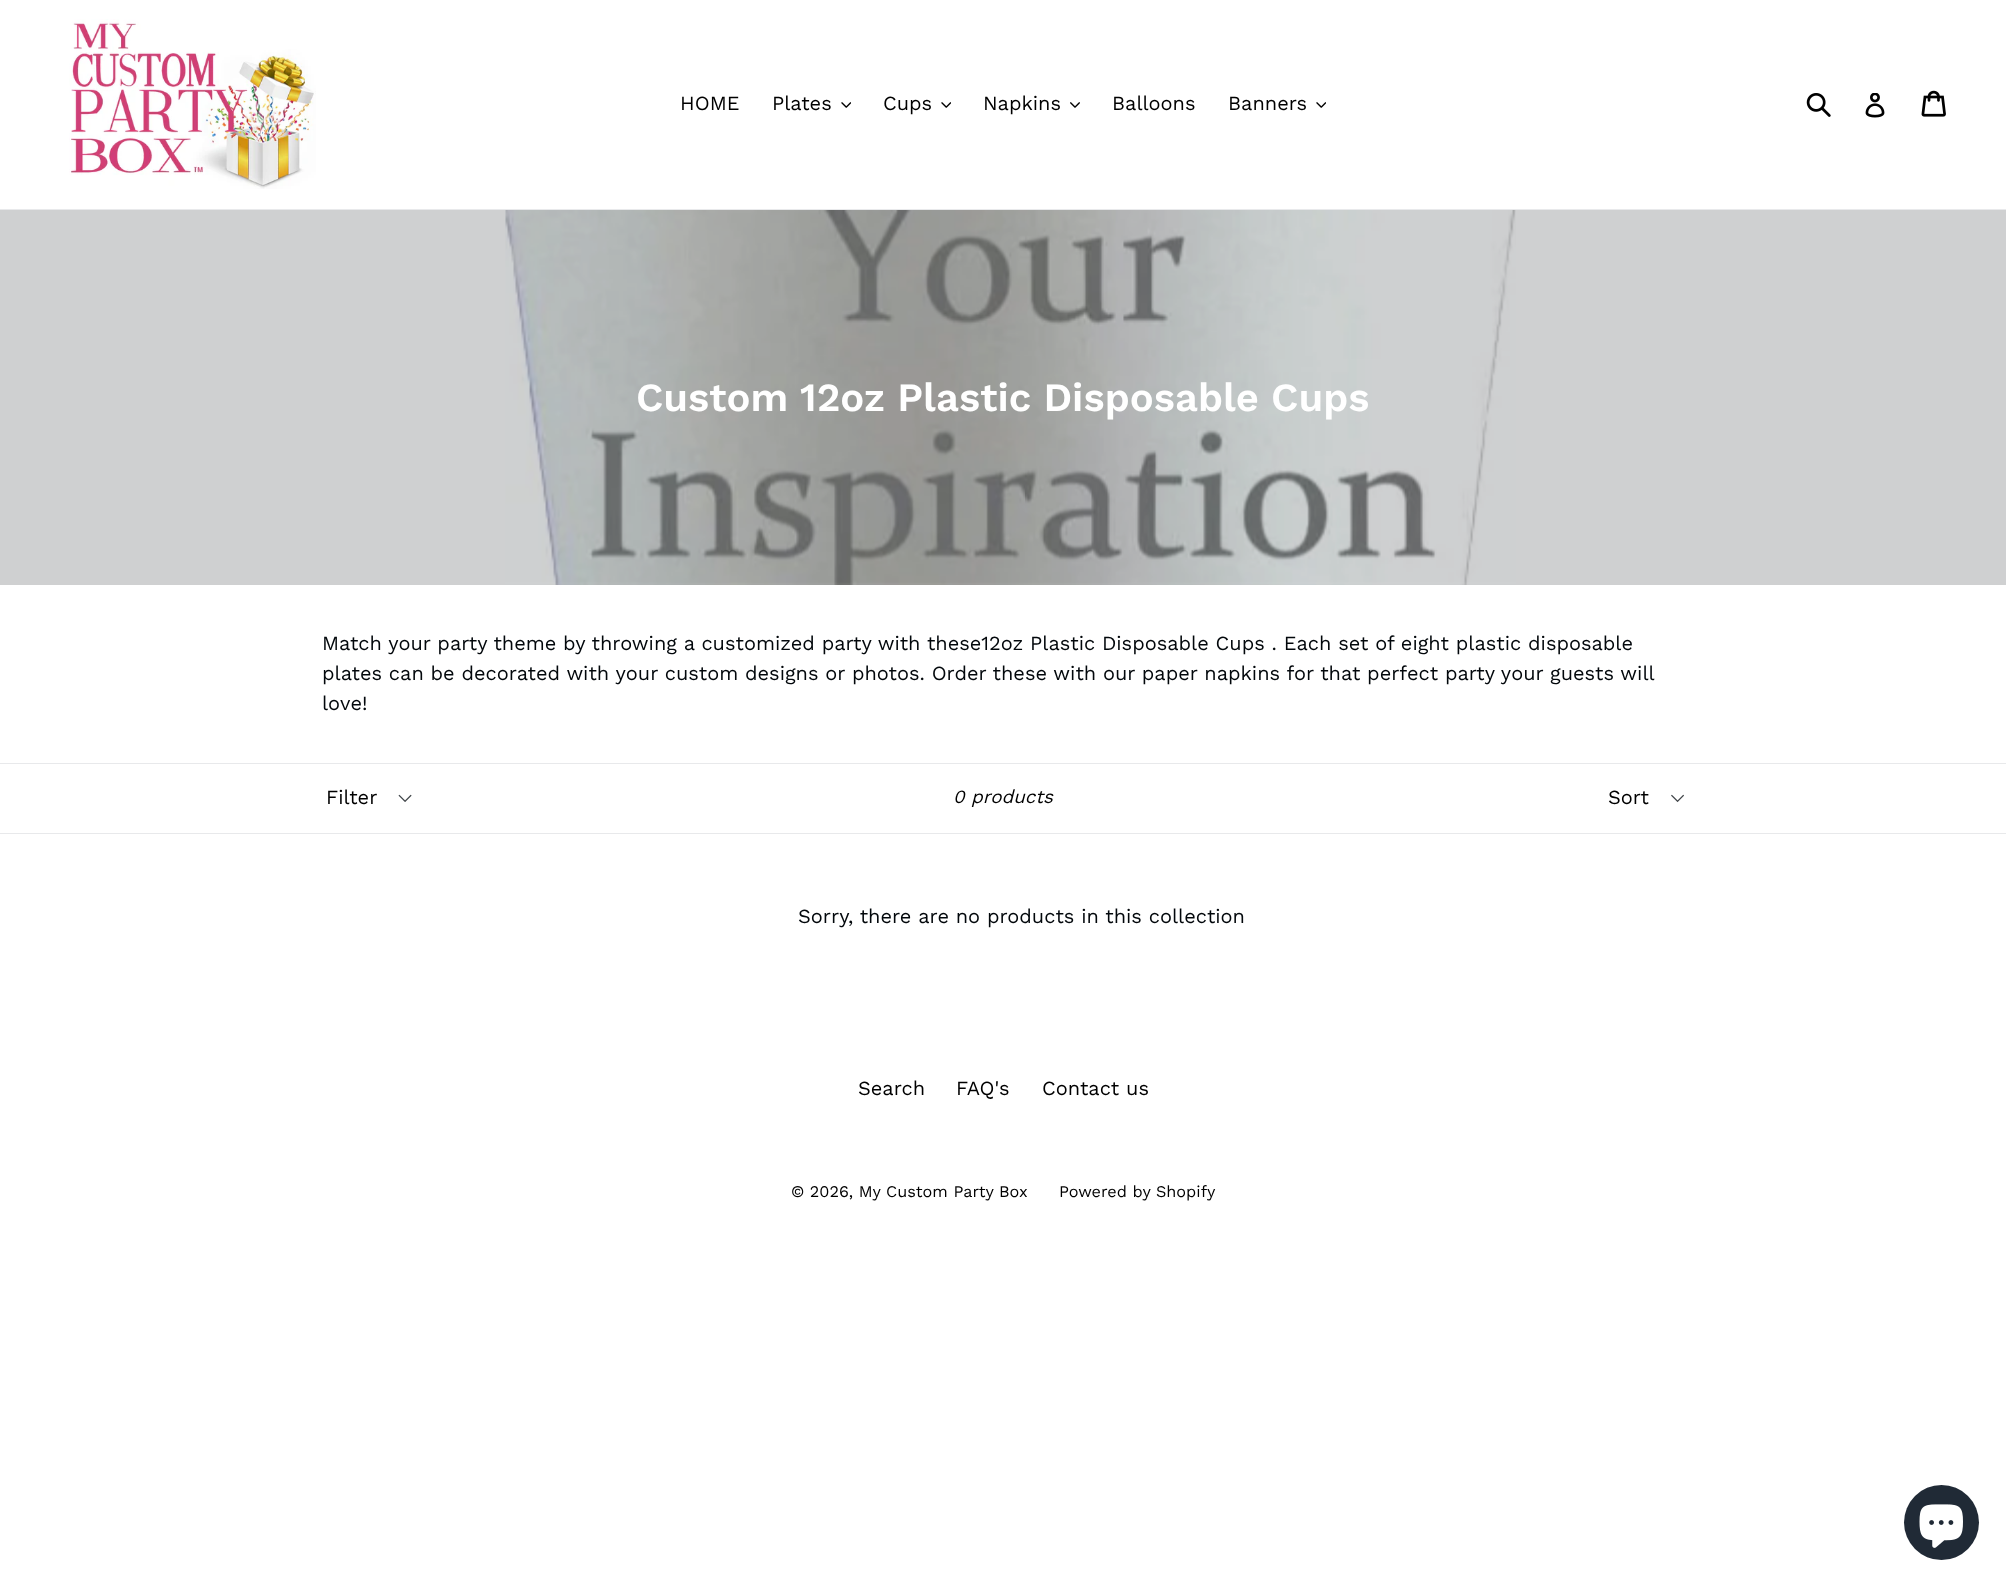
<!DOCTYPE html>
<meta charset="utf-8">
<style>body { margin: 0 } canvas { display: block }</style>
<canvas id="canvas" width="2006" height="1586"></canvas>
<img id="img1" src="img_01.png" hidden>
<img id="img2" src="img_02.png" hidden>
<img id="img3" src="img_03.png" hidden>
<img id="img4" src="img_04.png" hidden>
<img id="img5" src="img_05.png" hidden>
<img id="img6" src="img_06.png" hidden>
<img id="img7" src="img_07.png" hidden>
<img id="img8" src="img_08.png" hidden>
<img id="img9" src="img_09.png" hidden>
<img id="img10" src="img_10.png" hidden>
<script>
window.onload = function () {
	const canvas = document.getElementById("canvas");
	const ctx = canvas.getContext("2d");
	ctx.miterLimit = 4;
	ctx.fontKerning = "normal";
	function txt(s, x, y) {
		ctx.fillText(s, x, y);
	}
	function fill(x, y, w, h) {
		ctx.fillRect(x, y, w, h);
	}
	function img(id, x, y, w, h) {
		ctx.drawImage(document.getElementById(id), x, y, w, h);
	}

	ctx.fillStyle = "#FFFFFF";
	fill(0, 0, 2006, 1586);
	ctx.fillStyle = "#CFD0D1";
	fill(0, 210, 2006, 375);
	ctx.fillStyle = "#E8E9EB";
	fill(0, 209, 2006, 1);
	img("img1", 69, 19, 247, 170);
	img("img2", 841, 102, 10, 6);
	img("img2", 941, 102, 10, 6);
	img("img3", 1070, 102, 10, 6);
	img("img2", 1316, 102, 10, 6);
	img("img4", 1806, 93, 25, 24);
	img("img5", 1865, 93, 20, 25);
	img("img6", 1921, 90, 25, 27);
	img("img7", 505, 210, 1011, 375);
	fill(0, 763, 2006, 1);
	fill(0, 833, 2006, 1);
	img("img8", 398, 794, 14, 8);
	img("img9", 1671, 794, 13, 9);
	ctx.fillStyle = "#202A36";
	ctx.beginPath();
	ctx.arc(1941.5, 1522.5, 37.5, 0, Math.PI * 2);
	ctx.fill();
	img("img10", 1919, 1504, 44, 44);
	ctx.font = "20px Work Sans";
	ctx.fillStyle = "#000000";
	txt("HOME", 680, 110);
	txt("Plates", 772, 110);
	txt("Cups", 883, 110);
	txt("Napkins", 983, 110);
	txt("Balloons", 1112, 110);
	txt("Banners", 1228, 110);
	ctx.font = "600 40px Work Sans";
	ctx.fillStyle = "#FFFFFF";
	txt("Custom 12oz Plastic Disposable Cups", 636, 411);
	ctx.font = "20px Work Sans";
	ctx.fillStyle = "#02070B";
	txt("Match your party theme by throwing a customized party with these12oz Plastic Disposable Cups . Each set of eight plastic disposable", 322, 650);
	txt("plates can be decorated with your custom designs or photos. Order these with our paper napkins for that perfect party your guests will", 322, 680);
	txt("love!", 322, 710);
	ctx.fillStyle = "#000000";
	txt("Filter", 326, 804);
	ctx.font = "italic 18.75px Work Sans";
	txt("0 products", 953, 803);
	ctx.font = "20px Work Sans";
	txt("Sort", 1608, 804);
	ctx.fillStyle = "#02070B";
	txt("Sorry, there are no products in this collection", 798, 923);
	ctx.fillStyle = "#000000";
	txt("Search", 858, 1095);
	txt("FAQ's", 956, 1095);
	txt("Contact us", 1042, 1095);
	ctx.font = "16.25px Work Sans";
	txt("© 2026, My Custom Party Box", 791, 1197);
	txt("Powered by Shopify", 1059, 1197);
};
</script>
